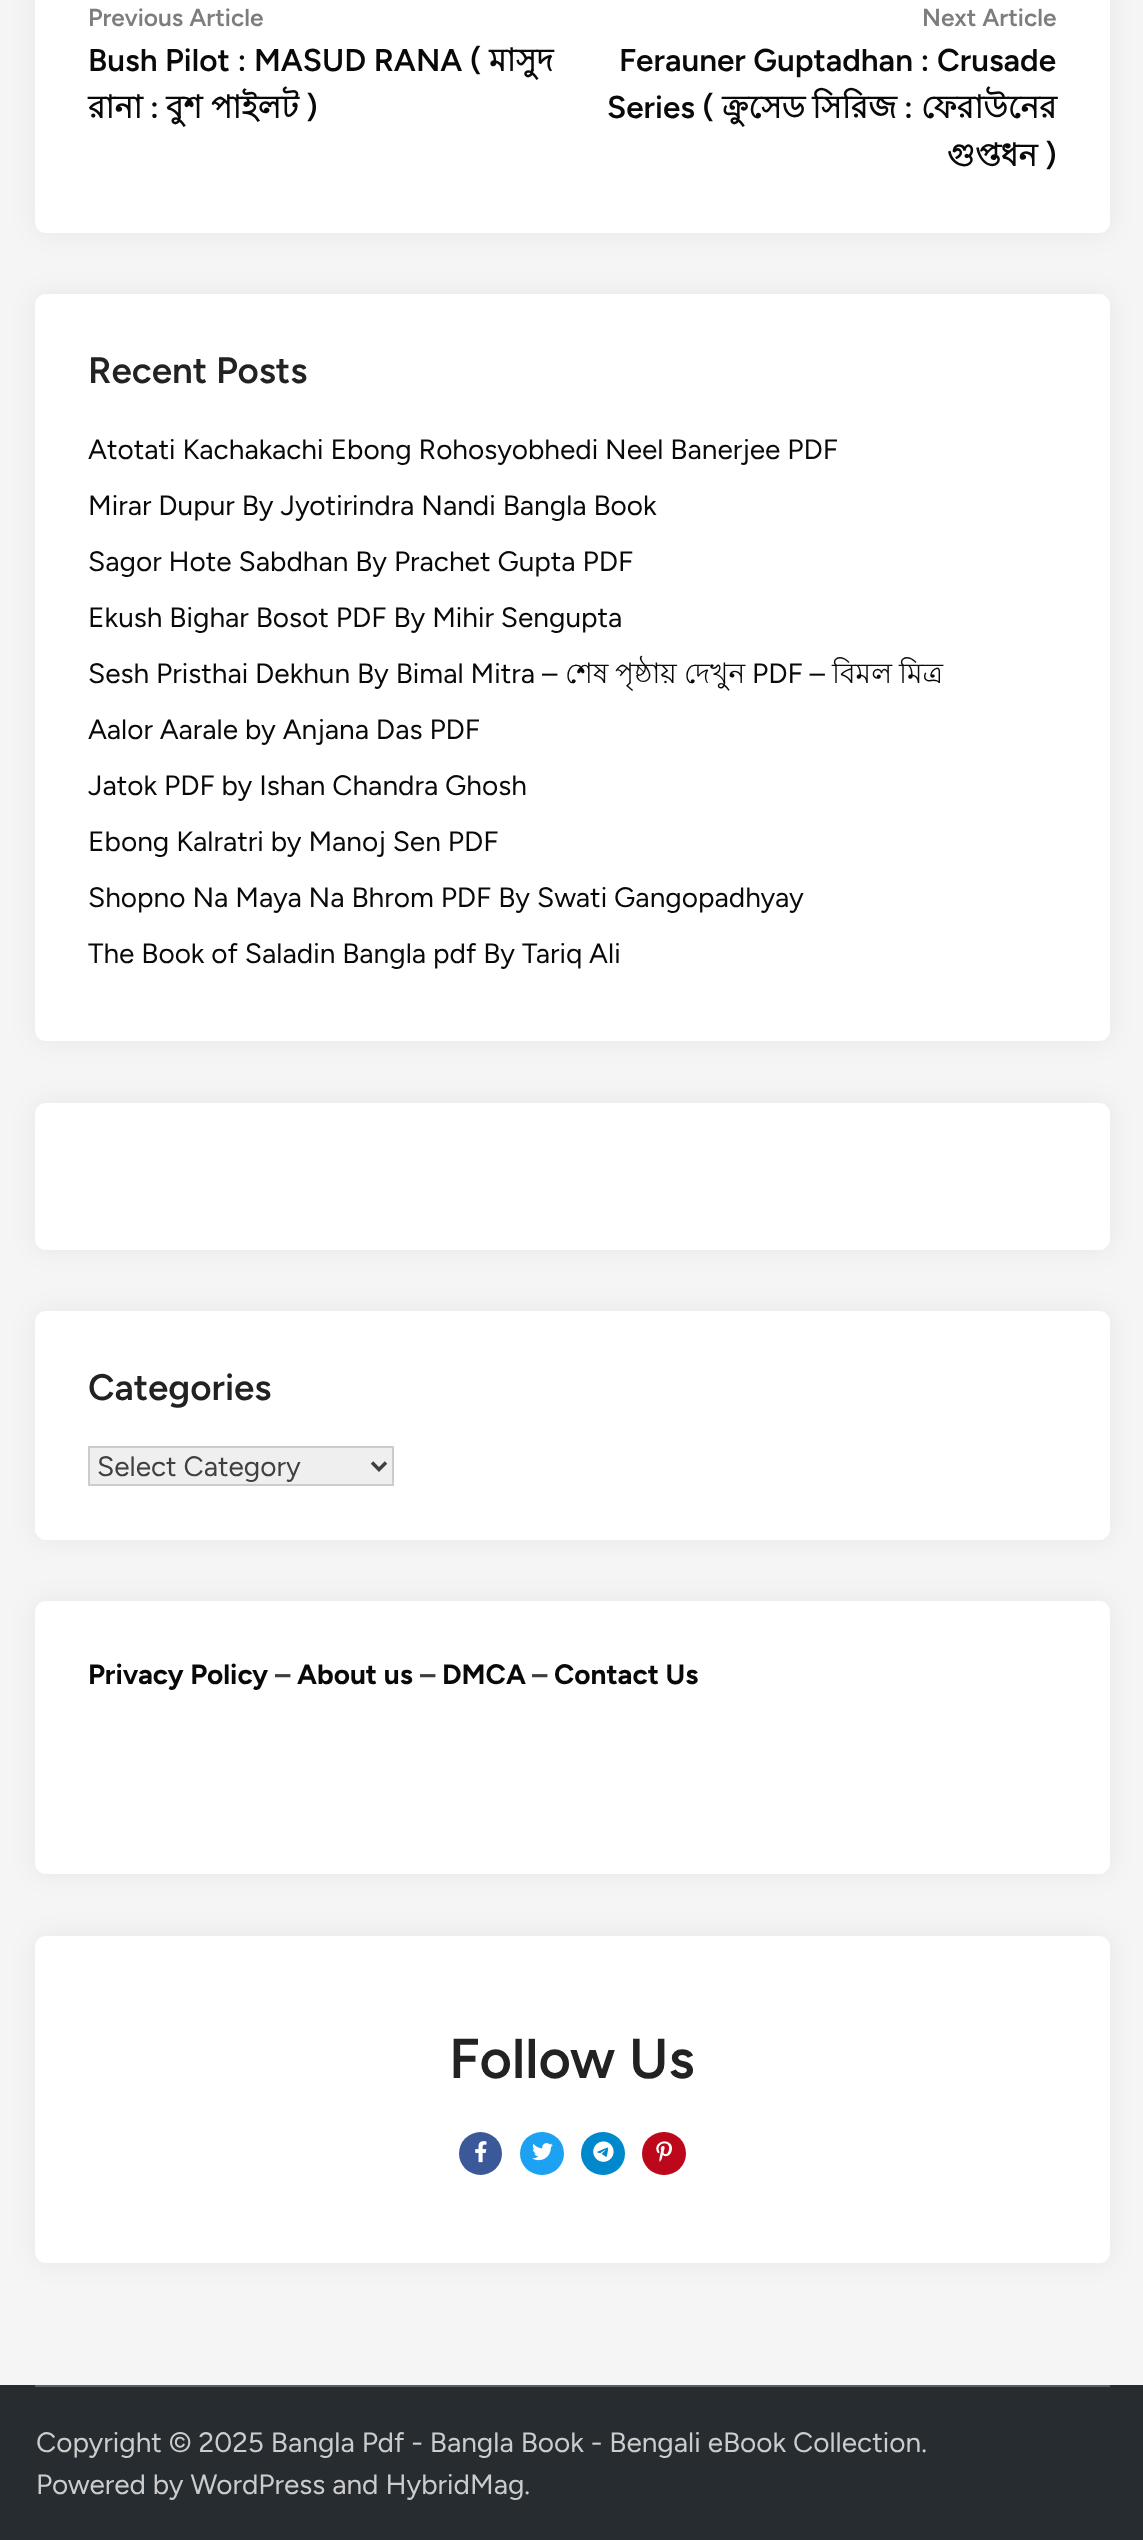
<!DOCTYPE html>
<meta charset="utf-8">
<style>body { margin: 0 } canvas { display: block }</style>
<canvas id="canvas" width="1143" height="2540"></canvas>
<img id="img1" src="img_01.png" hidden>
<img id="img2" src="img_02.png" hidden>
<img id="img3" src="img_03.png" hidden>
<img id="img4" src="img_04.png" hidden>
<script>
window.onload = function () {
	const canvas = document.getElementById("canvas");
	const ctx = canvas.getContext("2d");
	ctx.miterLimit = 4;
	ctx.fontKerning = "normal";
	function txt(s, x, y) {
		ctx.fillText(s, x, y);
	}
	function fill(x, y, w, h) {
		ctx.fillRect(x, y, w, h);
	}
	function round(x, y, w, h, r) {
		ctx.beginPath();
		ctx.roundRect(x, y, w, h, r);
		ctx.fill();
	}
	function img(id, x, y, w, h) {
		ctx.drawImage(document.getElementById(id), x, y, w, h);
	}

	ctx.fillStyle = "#F5F5F5";
	fill(0, 0, 1143, 2540);
	ctx.fillStyle = "rgba(0, 0, 0, 0.06)";
	ctx.filter = "blur(13px)";
	ctx.beginPath();
	ctx.roundRect(35, -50, 1075, 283, 11);
	ctx.fill();
	ctx.filter = "none";
	ctx.fillStyle = "#FFFFFF";
	round(35, -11, 1075, 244, 11);
	ctx.fillStyle = "rgba(0, 0, 0, 0.06)";
	ctx.filter = "blur(13px)";
	ctx.beginPath();
	ctx.roundRect(35, 294, 1075, 747, 11);
	ctx.fill();
	ctx.filter = "none";
	ctx.fillStyle = "#FFFFFF";
	round(35, 294, 1075, 747, 11);
	ctx.fillStyle = "rgba(0, 0, 0, 0.06)";
	ctx.filter = "blur(13px)";
	ctx.beginPath();
	ctx.roundRect(35, 1103, 1075, 147, 11);
	ctx.fill();
	ctx.filter = "none";
	ctx.fillStyle = "#FFFFFF";
	round(35, 1103, 1075, 147, 11);
	ctx.fillStyle = "rgba(0, 0, 0, 0.06)";
	ctx.filter = "blur(13px)";
	ctx.beginPath();
	ctx.roundRect(35, 1311, 1075, 229, 11);
	ctx.fill();
	ctx.filter = "none";
	ctx.fillStyle = "#FFFFFF";
	round(35, 1311, 1075, 229, 11);
	ctx.fillStyle = "#EFEFEF";
	ctx.beginPath();
	ctx.rect(89, 1447, 304, 38);
	ctx.fill();
	ctx.strokeStyle = "#CCCCCC";
	ctx.lineWidth = 2;
	ctx.stroke();
	ctx.beginPath();
	ctx.moveTo(372, 1462.5);
	ctx.lineTo(379, 1469.5);
	ctx.lineTo(386, 1462.5);
	ctx.strokeStyle = "#404040";
	ctx.lineWidth = 3.5;
	ctx.stroke();
	ctx.fillStyle = "rgba(0, 0, 0, 0.06)";
	ctx.filter = "blur(13px)";
	ctx.beginPath();
	ctx.roundRect(35, 1601, 1075, 273, 11);
	ctx.fill();
	ctx.filter = "none";
	ctx.fillStyle = "#FFFFFF";
	round(35, 1601, 1075, 273, 11);
	ctx.fillStyle = "rgba(0, 0, 0, 0.06)";
	ctx.filter = "blur(13px)";
	ctx.beginPath();
	ctx.roundRect(35, 1936, 1075, 327, 11);
	ctx.fill();
	ctx.filter = "none";
	ctx.fillStyle = "#FFFFFF";
	round(35, 1936, 1075, 327, 11);
	ctx.fillStyle = "#3B5998";
	ctx.beginPath();
	ctx.arc(480.5, 2153.5, 21.5, 0, Math.PI * 2);
	ctx.fill();
	img("img1", 475, 2141, 12, 22);
	ctx.fillStyle = "#1DA1F2";
	round(520, 2132, 44, 43, 21.5);
	img("img2", 532, 2143, 21, 18);
	ctx.fillStyle = "#0088CC";
	round(581, 2132, 44, 43, 21.5);
	img("img3", 593, 2141, 21, 21);
	ctx.fillStyle = "#BD081C";
	round(642, 2132, 44, 43, 21.5);
	img("img4", 656, 2141, 16, 21);
	ctx.fillStyle = "#272C30";
	fill(0, 2385, 1143, 155);
	ctx.fillStyle = "#595F64";
	fill(35, 2385, 1075, 2);
	ctx.font = "600 24.5px Figtree";
	ctx.fillStyle = "#7D7D7D";
	txt("Previous Article", 88, 26);
	ctx.font = "600 31.5px Figtree";
	ctx.fillStyle = "#0A0808";
	txt("Bush Pilot : MASUD RANA (", 88, 71);
	ctx.font = "bold 31.5px Lohit Bengali";
	txt("মাসুদ", 489, 71);
	txt("রানা", 88, 118);
	ctx.font = "600 31.5px Figtree";
	txt(")", 306, 118);
	txt(":", 150, 118);
	ctx.font = "bold 31.5px Lohit Bengali";
	txt("বুশ পাইলট", 166, 118);
	ctx.font = "600 24.5px Figtree";
	ctx.fillStyle = "#7D7D7D";
	txt("Next Article", 922, 26);
	ctx.font = "600 31.5px Figtree";
	ctx.fillStyle = "#0A0808";
	txt("Ferauner Guptadhan : Crusade", 619, 71);
	txt("Series (", 607, 118);
	ctx.font = "bold 31.5px Lohit Bengali";
	txt("ক্রুসেড", 722, 118);
	txt("সিরিজ", 812, 118);
	ctx.font = "600 31.5px Figtree";
	txt(":", 904, 118);
	ctx.font = "bold 31.5px Lohit Bengali";
	txt("ফেরাউনের", 921, 118);
	txt("গুপ্তধন", 947, 166);
	ctx.font = "600 31.5px Figtree";
	txt(")", 1045, 166);
	ctx.font = "600 36.75px Figtree";
	ctx.fillStyle = "#222222";
	txt("Recent Posts", 88, 383);
	ctx.font = "28px Figtree";
	ctx.fillStyle = "#0A0808";
	txt("Atotati Kachakachi Ebong Rohosyobhedi Neel Banerjee PDF", 88, 459);
	txt("Mirar Dupur By Jyotirindra Nandi Bangla Book", 88, 515);
	txt("Sagor Hote Sabdhan By Prachet Gupta PDF", 88, 571);
	txt("Ekush Bighar Bosot PDF By Mihir Sengupta", 88, 627);
	txt("Sesh Pristhai Dekhun By Bimal Mitra –", 88, 683);
	ctx.font = "28px Lohit Bengali";
	txt("শেষ", 565, 683);
	txt("পৃষ্ঠায়", 615, 683);
	txt("দেখুন", 684, 683);
	ctx.font = "28px Figtree";
	txt("PDF –", 752, 683);
	ctx.font = "28px Lohit Bengali";
	txt("বিমল", 832, 683);
	txt("মিত্র", 899, 683);
	ctx.font = "28px Figtree";
	txt("Aalor Aarale by Anjana Das PDF", 88, 739);
	txt("Jatok PDF by Ishan Chandra Ghosh", 88, 795);
	txt("Ebong Kalratri by Manoj Sen PDF", 88, 851);
	txt("Shopno Na Maya Na Bhrom PDF By Swati Gangopadhyay", 88, 907);
	txt("The Book of Saladin Bangla pdf By Tariq Ali", 88, 963);
	ctx.font = "600 36.75px Figtree";
	ctx.fillStyle = "#222222";
	txt("Categories", 88, 1400);
	ctx.font = "28px Figtree";
	ctx.fillStyle = "#404040";
	txt("Select Category", 97, 1476);
	ctx.font = "bold 28px Figtree";
	ctx.fillStyle = "#0A0808";
	txt("Privacy Policy", 88, 1684);
	ctx.fillStyle = "#404040";
	txt("–", 275, 1684);
	ctx.fillStyle = "#0A0808";
	txt("About us", 297, 1684);
	ctx.fillStyle = "#404040";
	txt("–", 420, 1684);
	ctx.fillStyle = "#0A0808";
	txt("DMCA", 442, 1684);
	ctx.fillStyle = "#404040";
	txt("–", 532, 1684);
	ctx.fillStyle = "#0A0808";
	txt("Contact Us", 554, 1684);
	ctx.font = "600 56px Figtree";
	ctx.fillStyle = "#222222";
	txt("Follow Us", 449, 2078);
	ctx.font = "28px Figtree";
	ctx.fillStyle = "#CCCCCC";
	txt("Copyright © 2025 Bangla Pdf - Bangla Book - Bengali eBook Collection.", 36, 2452);
	txt("Powered by WordPress and HybridMag.", 36, 2494);
};
</script>
